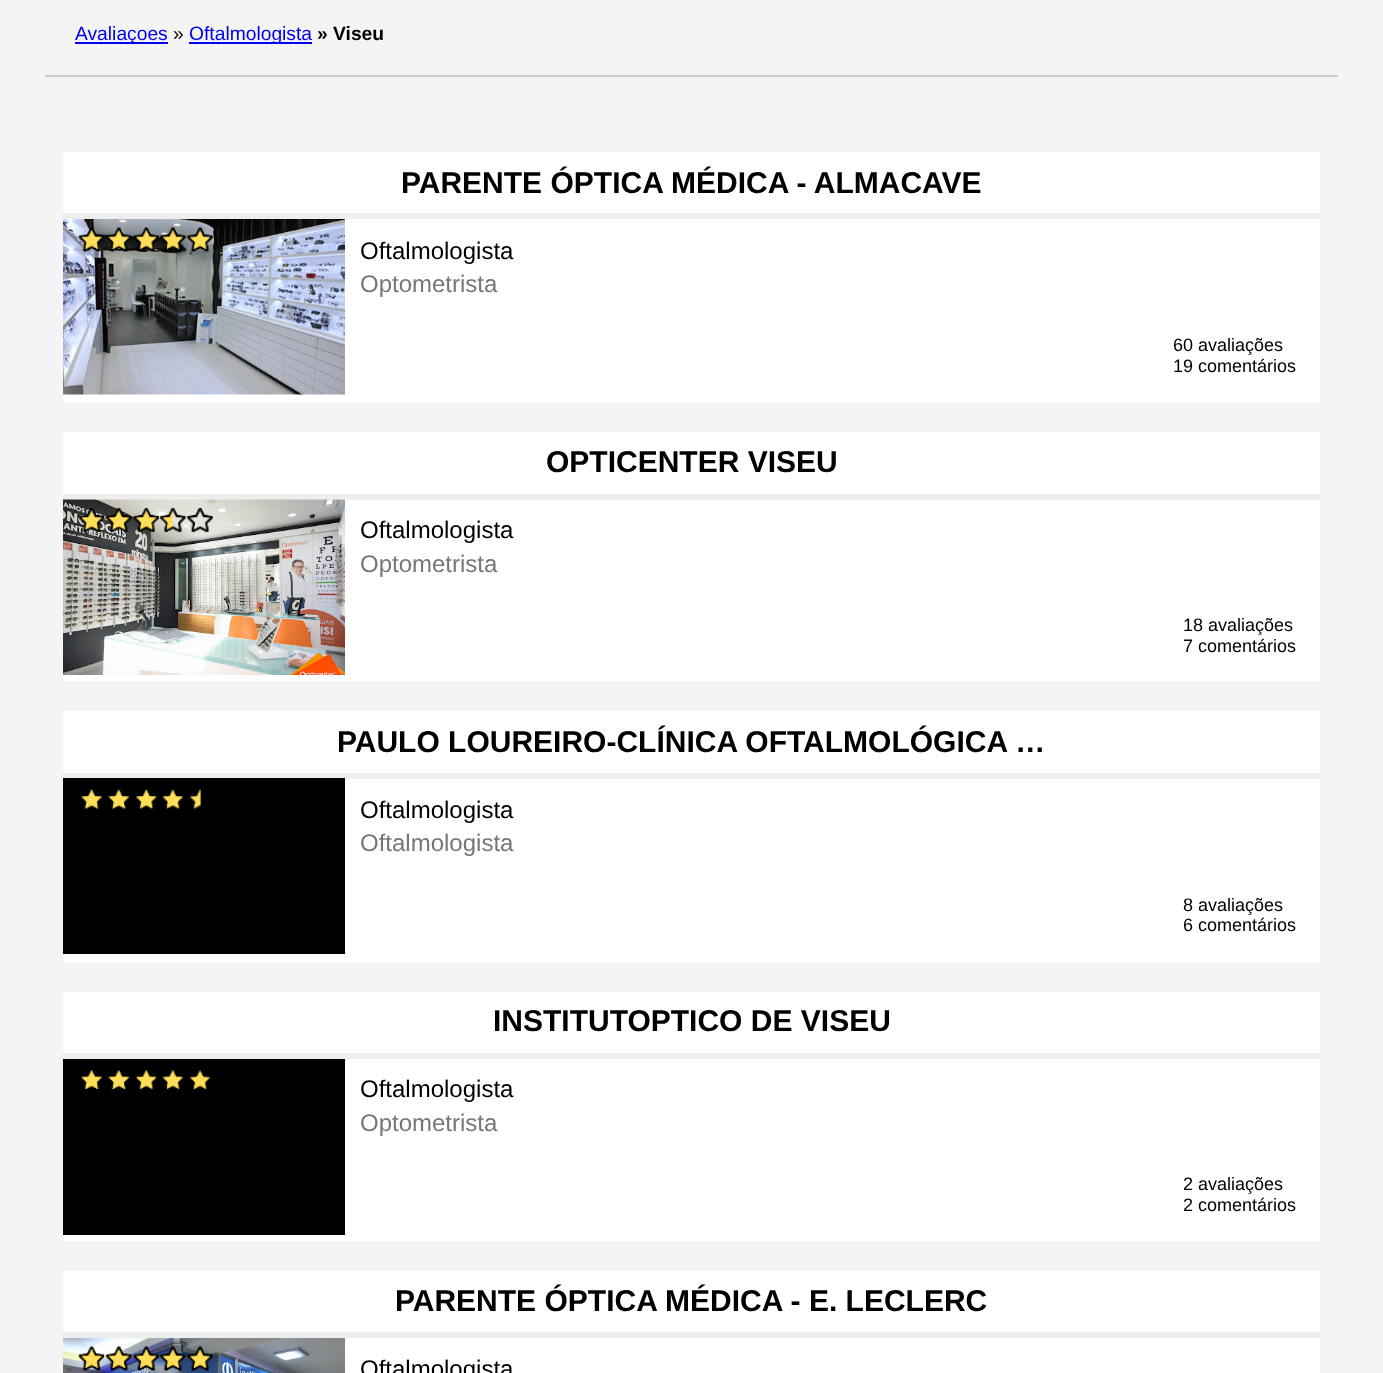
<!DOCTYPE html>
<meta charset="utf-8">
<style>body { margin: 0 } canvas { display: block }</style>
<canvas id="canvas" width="1383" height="1373"></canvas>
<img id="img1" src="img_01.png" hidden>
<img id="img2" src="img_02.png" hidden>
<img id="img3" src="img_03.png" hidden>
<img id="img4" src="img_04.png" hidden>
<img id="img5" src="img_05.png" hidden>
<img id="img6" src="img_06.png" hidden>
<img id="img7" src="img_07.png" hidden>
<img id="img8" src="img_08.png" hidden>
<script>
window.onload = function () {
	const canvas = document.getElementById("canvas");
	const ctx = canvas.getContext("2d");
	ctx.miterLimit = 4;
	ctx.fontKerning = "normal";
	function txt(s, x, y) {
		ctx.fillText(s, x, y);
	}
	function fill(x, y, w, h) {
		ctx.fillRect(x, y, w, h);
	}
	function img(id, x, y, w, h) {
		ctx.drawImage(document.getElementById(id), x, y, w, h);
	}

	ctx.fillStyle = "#F4F4F4";
	fill(0, 0, 1383, 1373);
	ctx.fillStyle = "#CCCCCC";
	fill(45, 75, 1293, 2);
	ctx.fillStyle = "#0000EE";
	fill(75, 42, 93, 2);
	fill(189, 42, 123, 2);
	ctx.fillStyle = "#FFFFFF";
	fill(63, 152, 1257, 250);
	ctx.fillStyle = "#EEEEEE";
	fill(63, 213, 1257, 6);
	img("img1", 63, 219, 282, 176);
	img("img2", 78, 226, 135, 26);
	ctx.fillStyle = "#FFFFFF";
	fill(63, 432, 1257, 249);
	ctx.fillStyle = "#EEEEEE";
	fill(63, 494, 1257, 6);
	img("img3", 63, 499, 282, 176);
	img("img4", 78, 507, 135, 26);
	ctx.fillStyle = "#FFFFFF";
	fill(63, 711, 1257, 251);
	ctx.fillStyle = "#EEEEEE";
	fill(63, 773, 1257, 6);
	ctx.fillStyle = "#000000";
	fill(63, 778, 282, 176);
	img("img5", 79, 788, 122, 23);
	ctx.fillStyle = "#FFFFFF";
	fill(63, 992, 1257, 249);
	ctx.fillStyle = "#EEEEEE";
	fill(63, 1053, 1257, 6);
	ctx.fillStyle = "#000000";
	fill(63, 1059, 282, 176);
	img("img6", 79, 1069, 132, 22);
	ctx.fillStyle = "#FFFFFF";
	fill(63, 1271, 1257, 102);
	ctx.fillStyle = "#EEEEEE";
	fill(63, 1332, 1257, 6);
	img("img7", 63, 1338, 282, 35);
	img("img8", 78, 1345, 135, 26);
	ctx.font = "19.25px Liberation Sans";
	ctx.fillStyle = "#0000EE";
	txt("Avaliaçoes", 75, 40);
	ctx.fillStyle = "#000000";
	txt("»", 173, 40);
	ctx.fillStyle = "#0000EE";
	txt("Oftalmologista", 189, 40);
	ctx.font = "bold 19.25px Liberation Sans";
	ctx.fillStyle = "#000000";
	txt("» Viseu", 317, 40);
	ctx.font = "bold 30px Liberation Sans";
	txt("PARENTE ÓPTICA MÉDICA - ALMACAVE", 401, 193);
	ctx.font = "24px Liberation Sans";
	txt("Oftalmologista", 360, 259);
	ctx.fillStyle = "#777777";
	txt("Optometrista", 360, 292);
	ctx.font = "18px Liberation Sans";
	ctx.fillStyle = "#000000";
	txt("60 avaliações", 1173, 351);
	txt("19 comentários", 1173, 372);
	ctx.font = "bold 30px Liberation Sans";
	txt("OPTICENTER VISEU", 546, 472);
	ctx.font = "24px Liberation Sans";
	txt("Oftalmologista", 360, 538);
	ctx.fillStyle = "#777777";
	txt("Optometrista", 360, 572);
	ctx.font = "18px Liberation Sans";
	ctx.fillStyle = "#000000";
	txt("18 avaliações", 1183, 631);
	txt("7 comentários", 1183, 652);
	ctx.font = "bold 30px Liberation Sans";
	txt("PAULO LOUREIRO-CLÍNICA OFTALMOLÓGICA …", 337, 752);
	ctx.font = "24px Liberation Sans";
	txt("Oftalmologista", 360, 818);
	ctx.fillStyle = "#777777";
	txt("Oftalmologista", 360, 851);
	ctx.font = "18px Liberation Sans";
	ctx.fillStyle = "#000000";
	txt("8 avaliações", 1183, 911);
	txt("6 comentários", 1183, 931);
	ctx.font = "bold 30px Liberation Sans";
	txt("INSTITUTOPTICO DE VISEU", 493, 1031);
	ctx.font = "24px Liberation Sans";
	txt("Oftalmologista", 360, 1097);
	ctx.fillStyle = "#777777";
	txt("Optometrista", 360, 1131);
	ctx.font = "18px Liberation Sans";
	ctx.fillStyle = "#000000";
	txt("2 avaliações", 1183, 1190);
	txt("2 comentários", 1183, 1211);
	ctx.font = "bold 30px Liberation Sans";
	txt("PARENTE ÓPTICA MÉDICA - E. LECLERC", 395, 1311);
	ctx.font = "24px Liberation Sans";
	txt("Oftalmologista", 360, 1377);
};
</script>
